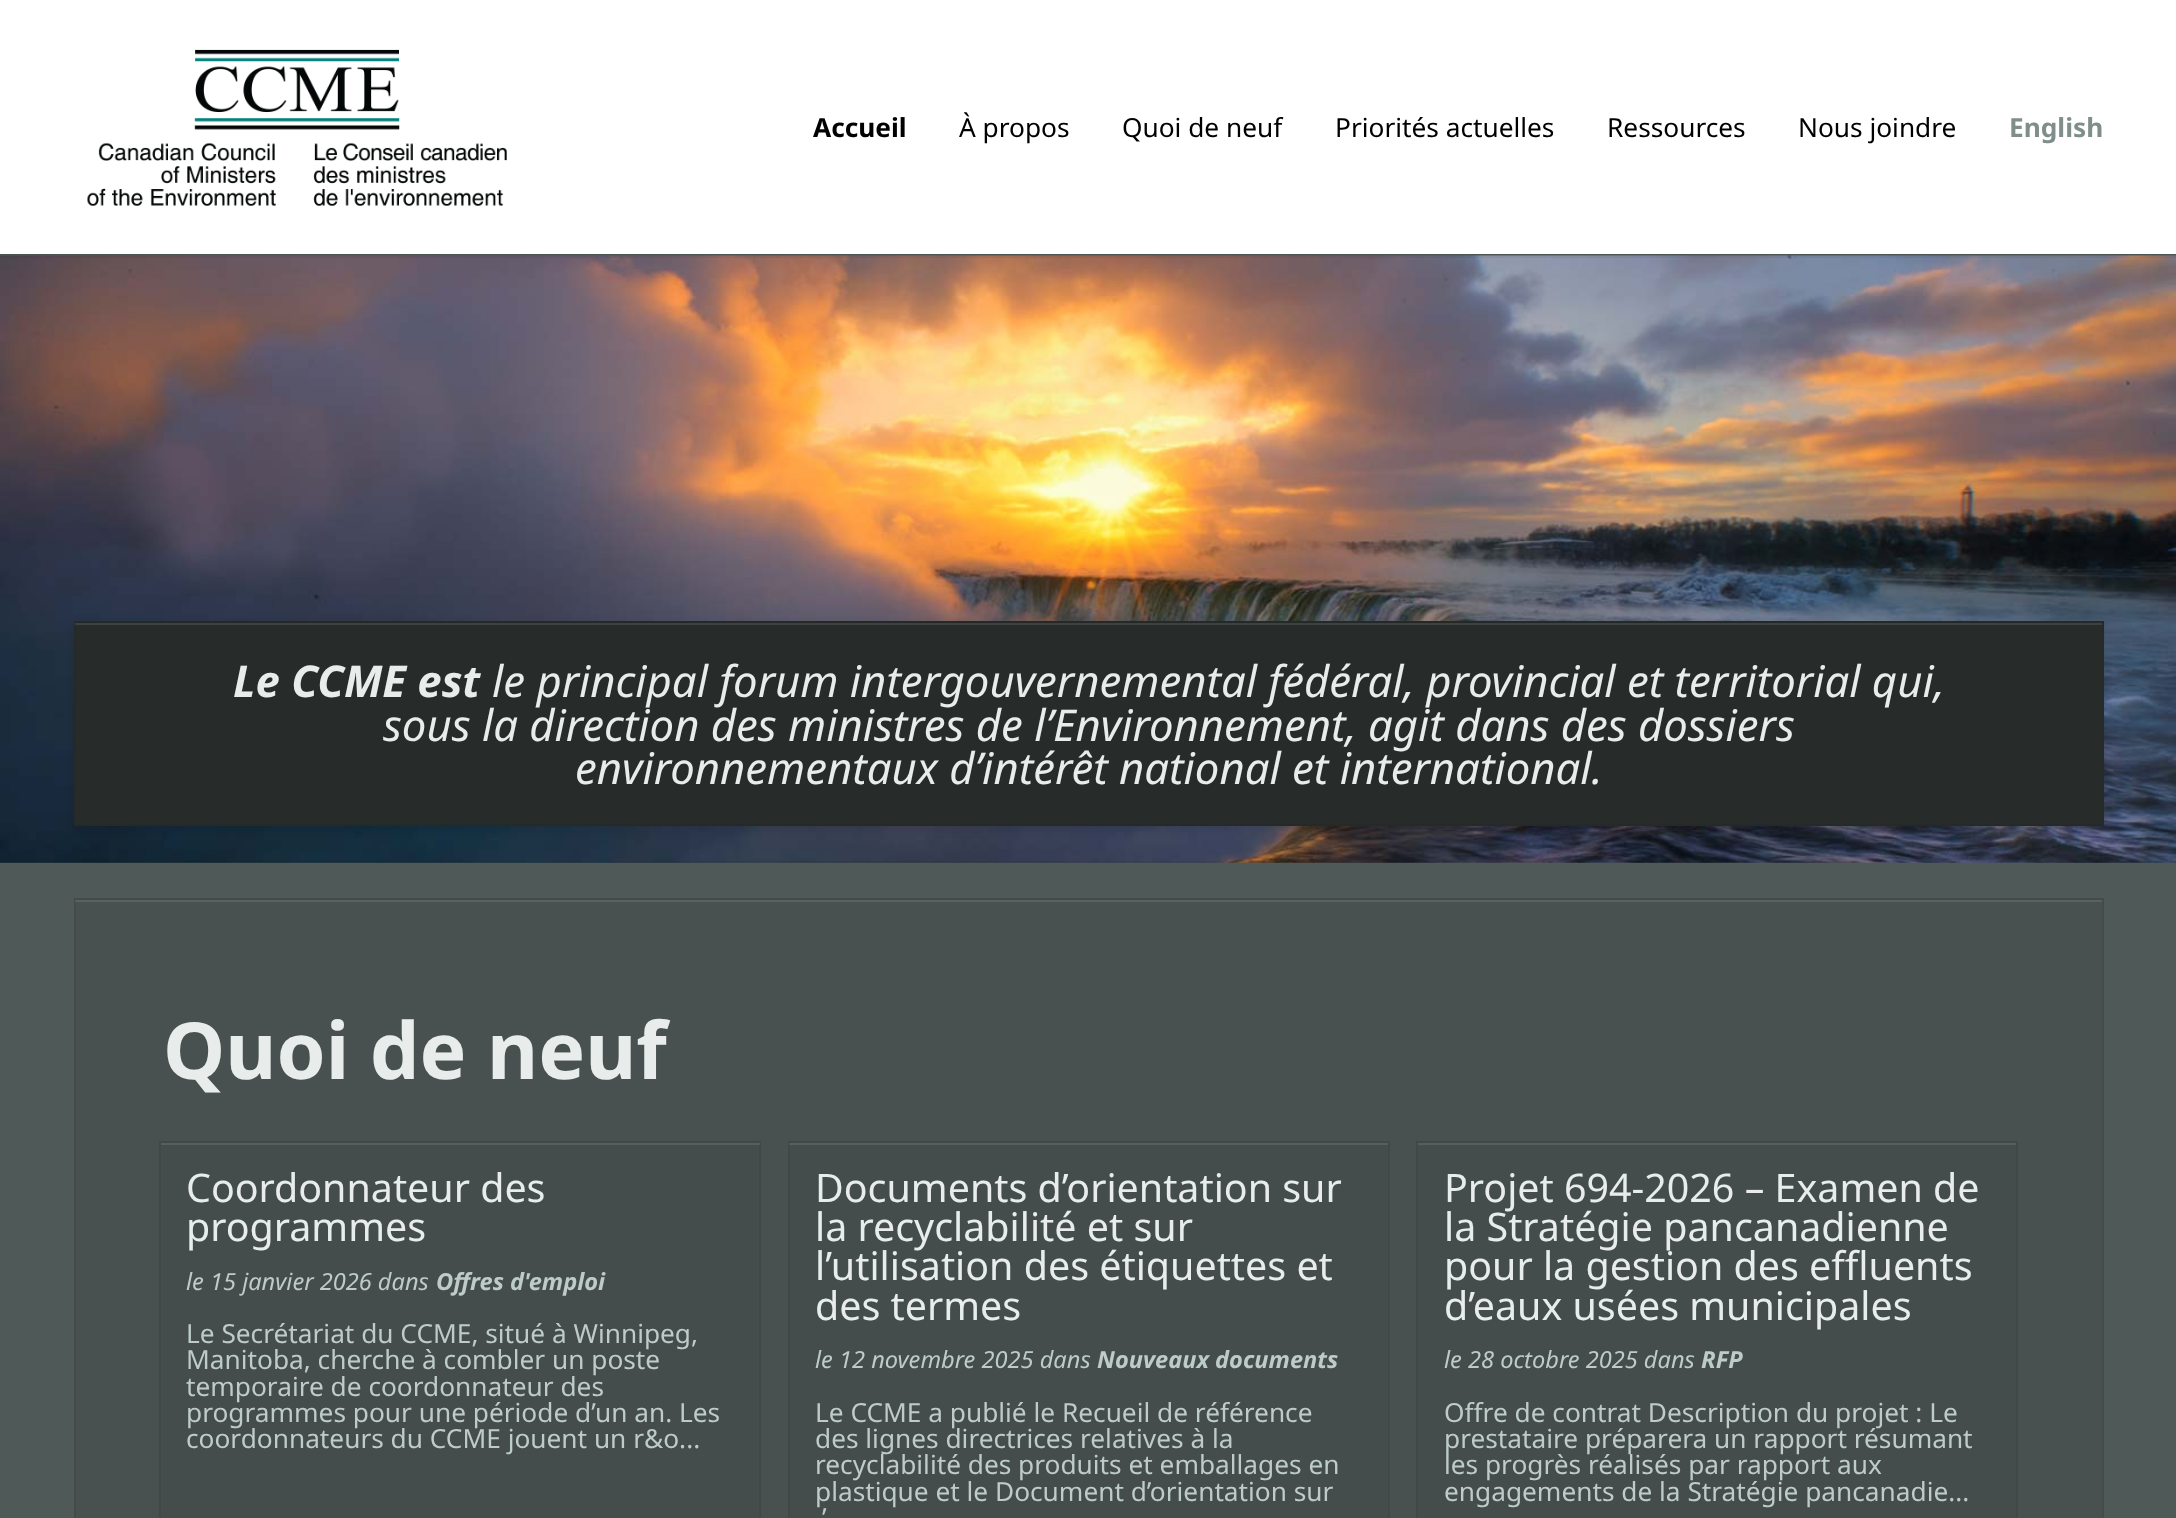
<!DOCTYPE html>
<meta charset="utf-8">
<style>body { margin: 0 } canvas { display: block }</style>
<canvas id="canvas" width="2176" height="1518"></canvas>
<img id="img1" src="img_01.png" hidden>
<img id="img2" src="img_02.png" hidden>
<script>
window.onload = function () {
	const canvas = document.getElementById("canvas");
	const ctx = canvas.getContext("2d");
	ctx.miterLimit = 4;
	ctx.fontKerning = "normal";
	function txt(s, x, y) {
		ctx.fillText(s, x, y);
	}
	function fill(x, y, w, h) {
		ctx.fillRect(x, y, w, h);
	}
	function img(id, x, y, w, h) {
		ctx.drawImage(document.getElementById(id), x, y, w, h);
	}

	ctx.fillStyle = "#FFFFFF";
	fill(0, 0, 2176, 1518);
	img("img1", 87, 49, 420, 157);
	ctx.fillStyle = "#4F5957";
	fill(0, 862, 2176, 656);
	ctx.fillStyle = "#4B5553";
	fill(0, 254, 2176, 2);
	img("img2", 0, 255, 2176, 608);
	ctx.fillStyle = "rgba(0, 0, 0, 0.05)";
	fill(0, 256, 2176, 2);
	fill(0, 861, 2176, 2);
	ctx.fillStyle = "rgba(0, 0, 0, 0.1)";
	ctx.filter = "blur(4.5px)";
	ctx.beginPath();
	ctx.rect(74, 625, 2030, 205);
	ctx.fill();
	ctx.filter = "none";
	ctx.fillStyle = "#272C2B";
	fill(74, 621, 2030, 205);
	ctx.fillStyle = "#3D4140";
	fill(75, 623, 2027, 2);
	ctx.strokeStyle = "rgba(0, 0, 0, 0.05)";
	ctx.lineWidth = 2;
	ctx.strokeRect(75, 622, 2028, 203);
	ctx.fillStyle = "#48514F";
	fill(74, 898, 2030, 620);
	ctx.fillStyle = "#5A6261";
	fill(75, 900, 2027, 2);
	ctx.strokeRect(75, 899, 2028, 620);
	ctx.fillStyle = "#444D4B";
	fill(159, 1141, 602, 377);
	ctx.fillStyle = "#575F5D";
	fill(161, 1143, 599, 2);
	ctx.strokeRect(160, 1142, 600, 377);
	ctx.fillStyle = "#444D4B";
	fill(788, 1141, 602, 377);
	ctx.fillStyle = "#575F5D";
	fill(789, 1143, 599, 2);
	ctx.strokeRect(789, 1142, 600, 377);
	ctx.fillStyle = "#444D4B";
	fill(1418, 1145, 598, 373);
	ctx.fillStyle = "#575F5D";
	fill(1418, 1143, 598, 2);
	ctx.strokeStyle = "#414947";
	ctx.strokeRect(1417, 1142, 600, 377);
	ctx.font = "bold 26.25px Noto Sans";
	ctx.fillStyle = "#000000";
	txt("Accueil", 813, 137);
	ctx.font = "26.25px Noto Sans";
	txt("À propos", 959, 137);
	txt("Quoi de neuf", 1122, 137);
	txt("Priorités actuelles", 1335, 137);
	txt("Ressources", 1607, 137);
	txt("Nous joindre", 1798, 137);
	ctx.font = "bold 26.25px Noto Sans";
	ctx.fillStyle = "#808E8B";
	txt("English", 2009, 137);
	ctx.font = "italic bold 43.65px Noto Sans";
	ctx.fillStyle = "#E8EDEC";
	txt("Le CCME est", 233, 697);
	ctx.font = "italic 43.65px Noto Sans";
	txt("le principal forum intergouvernemental fédéral, provincial et territorial qui,", 492, 697);
	txt("sous la direction des ministres de l’Environnement, agit dans des dossiers", 383, 741);
	txt("environnementaux d’intérêt national et international.", 575, 784);
	ctx.font = "bold 78.75px Noto Sans";
	txt("Quoi de neuf", 163, 1079);
	ctx.font = "39.4px Noto Sans";
	txt("Coordonnateur des", 186, 1202);
	txt("programmes", 186, 1241);
	ctx.font = "italic 23.6px Noto Sans";
	ctx.fillStyle = "#BDCBC9";
	txt("le 15 janvier 2026 dans", 186, 1290);
	ctx.font = "italic bold 23.6px Noto Sans";
	txt("Offres d'emploi", 436, 1290);
	ctx.font = "26.25px Noto Sans";
	txt("Le Secrétariat du CCME, situé à Winnipeg,", 186, 1343);
	txt("Manitoba, cherche à combler un poste", 186, 1369);
	txt("temporaire de coordonnateur des", 186, 1396);
	txt("programmes pour une période d’un an. Les", 186, 1422);
	txt("coordonnateurs du CCME jouent un r&o...", 186, 1448);
	ctx.font = "39.4px Noto Sans";
	ctx.fillStyle = "#E8EDEC";
	txt("Documents d’orientation sur", 815, 1202);
	txt("la recyclabilité et sur", 815, 1241);
	txt("l’utilisation des étiquettes et", 815, 1280);
	txt("des termes", 815, 1320);
	ctx.font = "italic 23.6px Noto Sans";
	ctx.fillStyle = "#BDCBC9";
	txt("le 12 novembre 2025 dans", 815, 1368);
	ctx.font = "italic bold 23.6px Noto Sans";
	txt("Nouveaux documents", 1097, 1368);
	ctx.font = "26.25px Noto Sans";
	txt("Le CCME a publié le Recueil de référence", 815, 1422);
	txt("des lignes directrices relatives à la", 815, 1448);
	txt("recyclabilité des produits et emballages en", 815, 1474);
	txt("plastique et le Document d’orientation sur", 815, 1501);
	txt("’", 822, 1527);
	ctx.font = "39.4px Noto Sans";
	ctx.fillStyle = "#E8EDEC";
	txt("Projet 694-2026 – Examen de", 1444, 1202);
	txt("la Stratégie pancanadienne", 1444, 1241);
	txt("pour la gestion des effluents", 1444, 1280);
	txt("d’eaux usées municipales", 1444, 1320);
	ctx.font = "italic 23.6px Noto Sans";
	ctx.fillStyle = "#BDCBC9";
	txt("le 28 octobre 2025 dans", 1444, 1368);
	ctx.font = "italic bold 23.6px Noto Sans";
	txt("RFP", 1701, 1368);
	ctx.font = "26.25px Noto Sans";
	txt("Offre de contrat Description du projet : Le", 1444, 1422);
	txt("prestataire préparera un rapport résumant", 1444, 1448);
	txt("les progrès réalisés par rapport aux", 1444, 1474);
	txt("engagements de la Stratégie pancanadie...", 1444, 1501);
};
</script>
